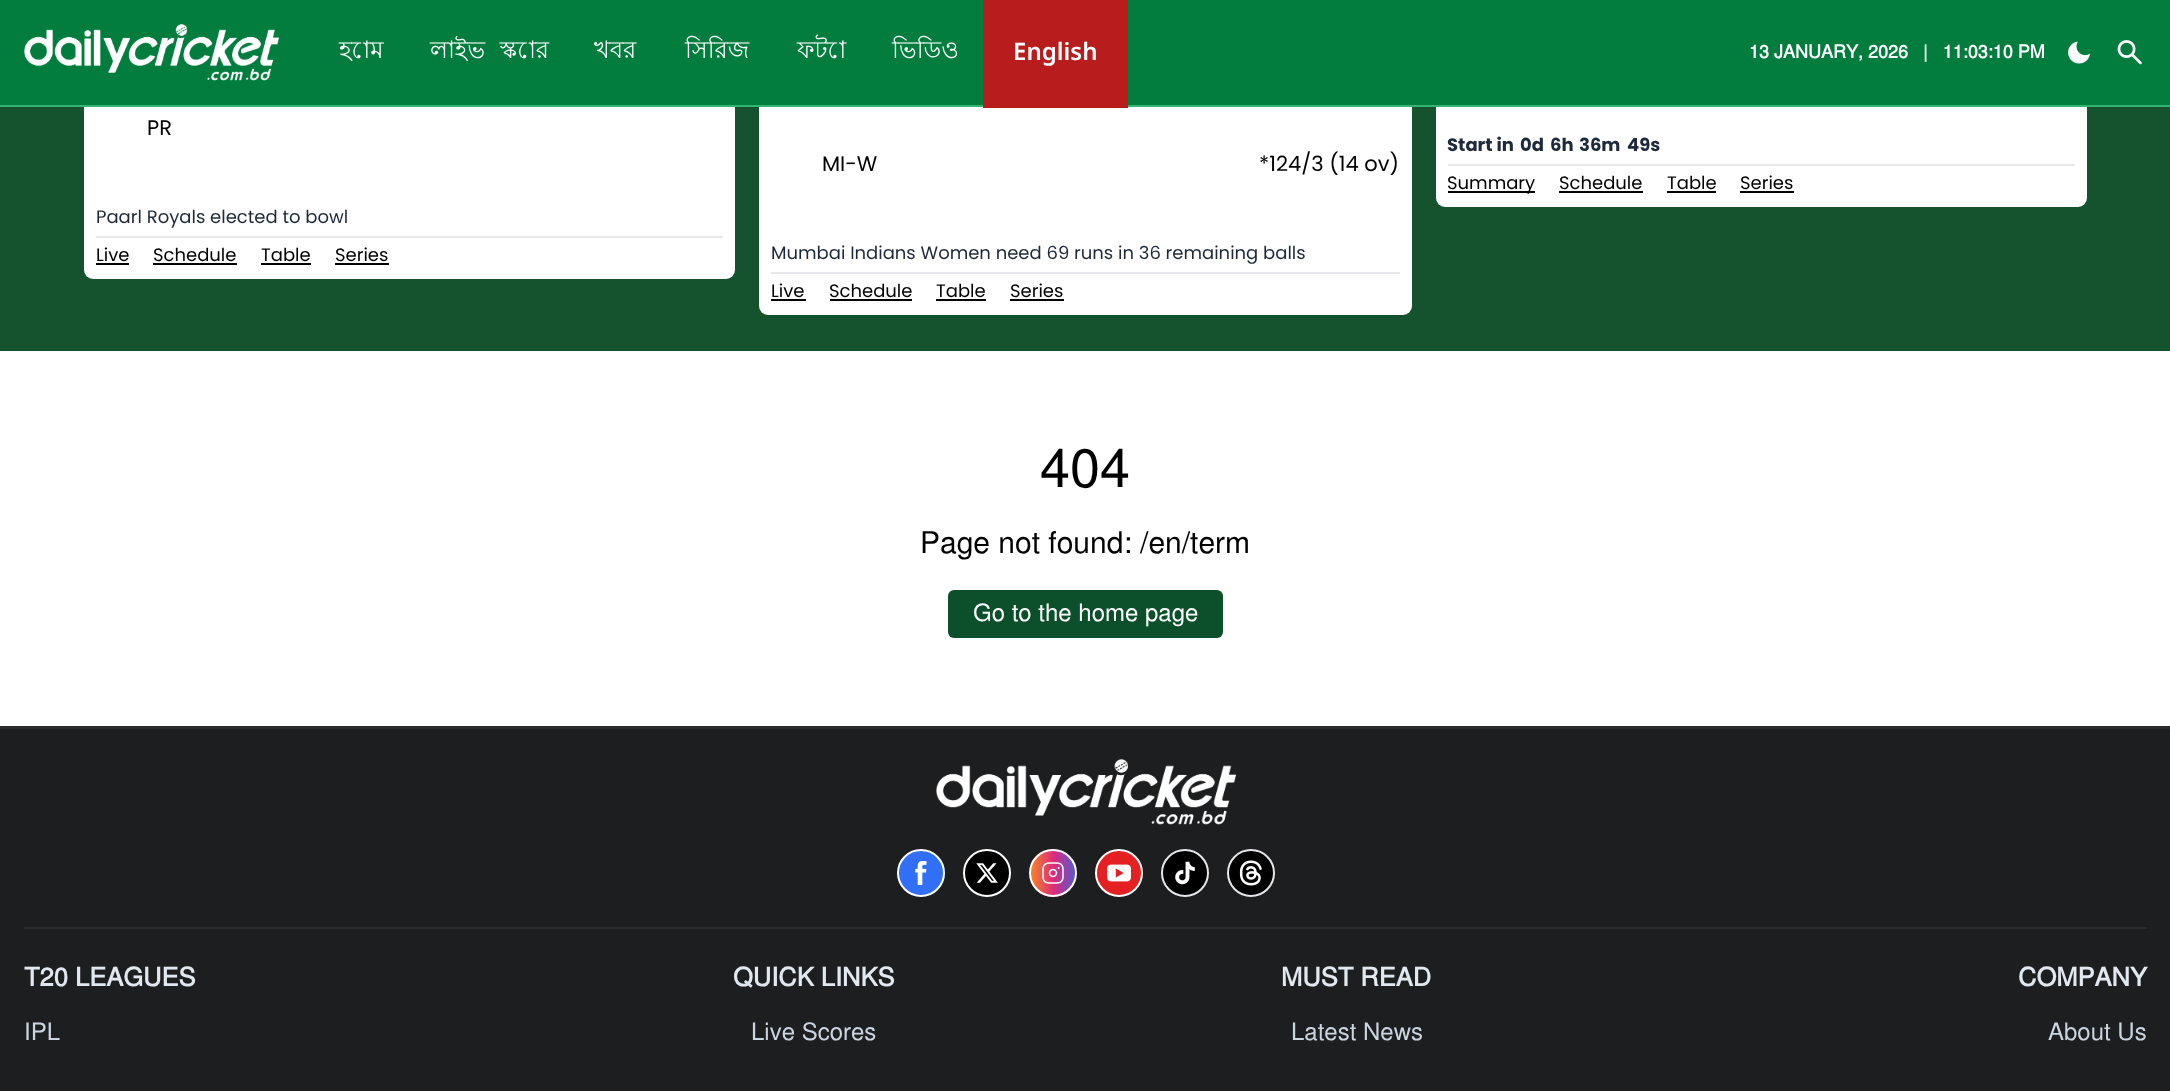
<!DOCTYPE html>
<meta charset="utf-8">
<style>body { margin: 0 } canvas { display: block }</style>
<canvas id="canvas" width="2170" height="1091"></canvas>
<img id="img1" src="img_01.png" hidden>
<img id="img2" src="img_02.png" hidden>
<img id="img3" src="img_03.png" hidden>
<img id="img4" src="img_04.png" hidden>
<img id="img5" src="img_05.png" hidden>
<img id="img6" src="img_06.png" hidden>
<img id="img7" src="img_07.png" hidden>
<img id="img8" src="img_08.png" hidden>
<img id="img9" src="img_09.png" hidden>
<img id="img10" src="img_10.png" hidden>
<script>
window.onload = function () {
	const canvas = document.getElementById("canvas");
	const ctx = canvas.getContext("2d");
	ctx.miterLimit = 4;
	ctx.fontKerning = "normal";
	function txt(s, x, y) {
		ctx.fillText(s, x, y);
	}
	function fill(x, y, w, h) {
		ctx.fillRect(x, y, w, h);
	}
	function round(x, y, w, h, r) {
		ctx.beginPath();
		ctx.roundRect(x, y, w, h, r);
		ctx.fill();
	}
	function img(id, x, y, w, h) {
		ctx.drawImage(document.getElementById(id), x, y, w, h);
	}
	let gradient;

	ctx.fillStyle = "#FFFFFF";
	fill(0, 0, 2170, 1091);
	ctx.fillStyle = "#14532D";
	fill(0, 107, 2170, 244);
	ctx.fillStyle = "#FFFFFF";
	round(84, -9, 651, 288, 9);
	round(759, -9, 653, 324, 9);
	round(1436, -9, 651, 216, 9);
	ctx.fillStyle = "#027D3E";
	fill(0, 0, 2170, 105);
	ctx.fillStyle = "#32B572";
	fill(0, 105, 2170, 2);
	img("img1", 24, 24, 255, 57);
	ctx.fillStyle = "#B91C1C";
	fill(983, 0, 145, 108);
	img("img2", 2068, 41, 22, 23);
	img("img3", 2117, 40, 25, 25);
	ctx.fillStyle = "#E5E7EB";
	fill(96, 236, 627, 2);
	ctx.fillStyle = "#000000";
	fill(96, 263, 33, 2);
	fill(153, 263, 84, 2);
	fill(261, 263, 50, 2);
	fill(335, 263, 54, 2);
	ctx.fillStyle = "#E5E7EB";
	fill(771, 272, 629, 2);
	ctx.fillStyle = "#000000";
	fill(771, 299, 35, 2);
	fill(830, 299, 82, 2);
	fill(936, 299, 50, 2);
	fill(1010, 299, 54, 2);
	ctx.fillStyle = "#E5E7EB";
	fill(1448, 164, 627, 2);
	ctx.fillStyle = "#000000";
	fill(1448, 191, 87, 2);
	fill(1559, 191, 84, 2);
	fill(1667, 191, 49, 2);
	fill(1740, 191, 54, 2);
	ctx.fillStyle = "#0C502B";
	round(948, 590, 275, 48, 6);
	ctx.fillStyle = "#1D1E1F";
	fill(0, 729, 2170, 362);
	ctx.fillStyle = "#2B2C2D";
	fill(0, 726, 2170, 3);
	fill(24, 927, 2123, 2);
	img("img4", 936, 759, 300, 66);
	ctx.fillStyle = "#316FF6";
	ctx.beginPath();
	ctx.arc(921, 873, 23, 0, Math.PI * 2);
	ctx.fill();
	ctx.strokeStyle = "#FFFFFF";
	ctx.lineWidth = 2;
	ctx.stroke();
	img("img5", 915, 861, 12, 24);
	ctx.fillStyle = "#000000";
	ctx.beginPath();
	ctx.arc(987, 873, 23, 0, Math.PI * 2);
	ctx.fill();
	ctx.stroke();
	img("img6", 976, 863, 22, 20);
	ctx.save();
	ctx.beginPath();
	ctx.roundRect(1029, 849, 48, 48, 24);
	ctx.clip();
	gradient = ctx.createLinearGradient(1031, 873, 1076, 873);
	gradient.addColorStop(0, "#F58529");
	gradient.addColorStop(0.5, "#DD2A7B");
	gradient.addColorStop(1, "#515BD4");
	ctx.fillStyle = gradient;
	fill(1031, 849, 45, 48);
	ctx.restore();
	ctx.beginPath();
	ctx.arc(1053, 873, 23, 0, Math.PI * 2);
	ctx.stroke();
	img("img7", 1042, 862, 22, 22);
	ctx.fillStyle = "#E42022";
	ctx.beginPath();
	ctx.arc(1119, 873, 23, 0, Math.PI * 2);
	ctx.fill();
	ctx.stroke();
	img("img8", 1107, 864, 24, 18);
	ctx.fillStyle = "#000000";
	ctx.beginPath();
	ctx.arc(1185, 873, 23, 0, Math.PI * 2);
	ctx.fill();
	ctx.strokeStyle = "#E5E7EB";
	ctx.stroke();
	img("img9", 1175, 861, 20, 24);
	ctx.beginPath();
	ctx.arc(1251, 873, 23, 0, Math.PI * 2);
	ctx.fill();
	ctx.stroke();
	img("img10", 1239, 860, 23, 26);
	ctx.font = "24px Lohit Bengali";
	ctx.fillStyle = "#FFFFFF";
	txt("হোম", 339, 58);
	ctx.wordSpacing = "8px";
	txt("লাইভ স্কোর", 430, 58);
	ctx.wordSpacing = "0px";
	txt("খবর", 594, 58);
	txt("সিরিজ", 685, 58);
	txt("ফটো", 797, 58);
	txt("ভিডিও", 892, 58);
	ctx.font = "600 24px Noto Sans";
	txt("English", 1013, 60);
	ctx.font = "bold 18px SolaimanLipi";
	txt("13 JANUARY, 2026   |   11:03:10 PM", 1749, 58);
	ctx.font = "21px Poppins";
	ctx.fillStyle = "#000000";
	txt("PR", 147, 135);
	ctx.font = "18px Poppins";
	ctx.fillStyle = "#1E293B";
	txt("Paarl Royals elected to bowl", 96, 223);
	ctx.fillStyle = "#000000";
	txt("Live", 96, 261);
	txt("Schedule", 153, 261);
	txt("Table", 261, 261);
	txt("Series", 335, 261);
	ctx.font = "21px Poppins";
	txt("MI-W", 822, 171);
	txt("*124/3 (14 ov)", 1259, 171);
	ctx.font = "18px Poppins";
	ctx.fillStyle = "#1E293B";
	txt("Mumbai Indians Women need 69 runs in 36 remaining balls", 771, 259);
	ctx.fillStyle = "#000000";
	txt("Live", 771, 297);
	txt("Schedule", 829, 297);
	txt("Table", 936, 297);
	txt("Series", 1010, 297);
	ctx.font = "bold 18px Poppins";
	ctx.fillStyle = "#1E293B";
	txt("Start in", 1447, 151);
	txt("0d", 1520, 151);
	txt("6h", 1550, 151);
	txt("36m", 1579, 151);
	txt("49s", 1627, 151);
	ctx.font = "18px Poppins";
	ctx.fillStyle = "#000000";
	txt("Summary", 1447, 189);
	txt("Schedule", 1559, 189);
	txt("Table", 1667, 189);
	txt("Series", 1740, 189);
	ctx.font = "54px SolaimanLipi";
	txt("404", 1040, 487);
	ctx.font = "30px SolaimanLipi";
	txt("Page not found: /en/term", 920, 553);
	ctx.font = "24px SolaimanLipi";
	ctx.fillStyle = "#FFFFFF";
	txt("Go to the home page", 973, 621);
	ctx.font = "bold 25.5px SolaimanLipi";
	ctx.fillStyle = "#E2E8F0";
	txt("T20 LEAGUES", 24, 986);
	ctx.font = "24px SolaimanLipi";
	ctx.fillStyle = "#CBD5E1";
	txt("IPL", 24, 1040);
	ctx.font = "bold 25.5px SolaimanLipi";
	ctx.fillStyle = "#E2E8F0";
	txt("QUICK LINKS", 733, 986);
	ctx.font = "24px SolaimanLipi";
	ctx.fillStyle = "#CBD5E1";
	txt("Live Scores", 751, 1040);
	ctx.font = "bold 25.5px SolaimanLipi";
	ctx.fillStyle = "#E2E8F0";
	txt("MUST READ", 1281, 986);
	ctx.font = "24px SolaimanLipi";
	ctx.fillStyle = "#CBD5E1";
	txt("Latest News", 1291, 1040);
	ctx.font = "bold 25.5px SolaimanLipi";
	ctx.fillStyle = "#E2E8F0";
	txt("COMPANY", 2018, 986);
	ctx.font = "24px SolaimanLipi";
	ctx.fillStyle = "#CBD5E1";
	txt("About Us", 2048, 1040);
};
</script>
